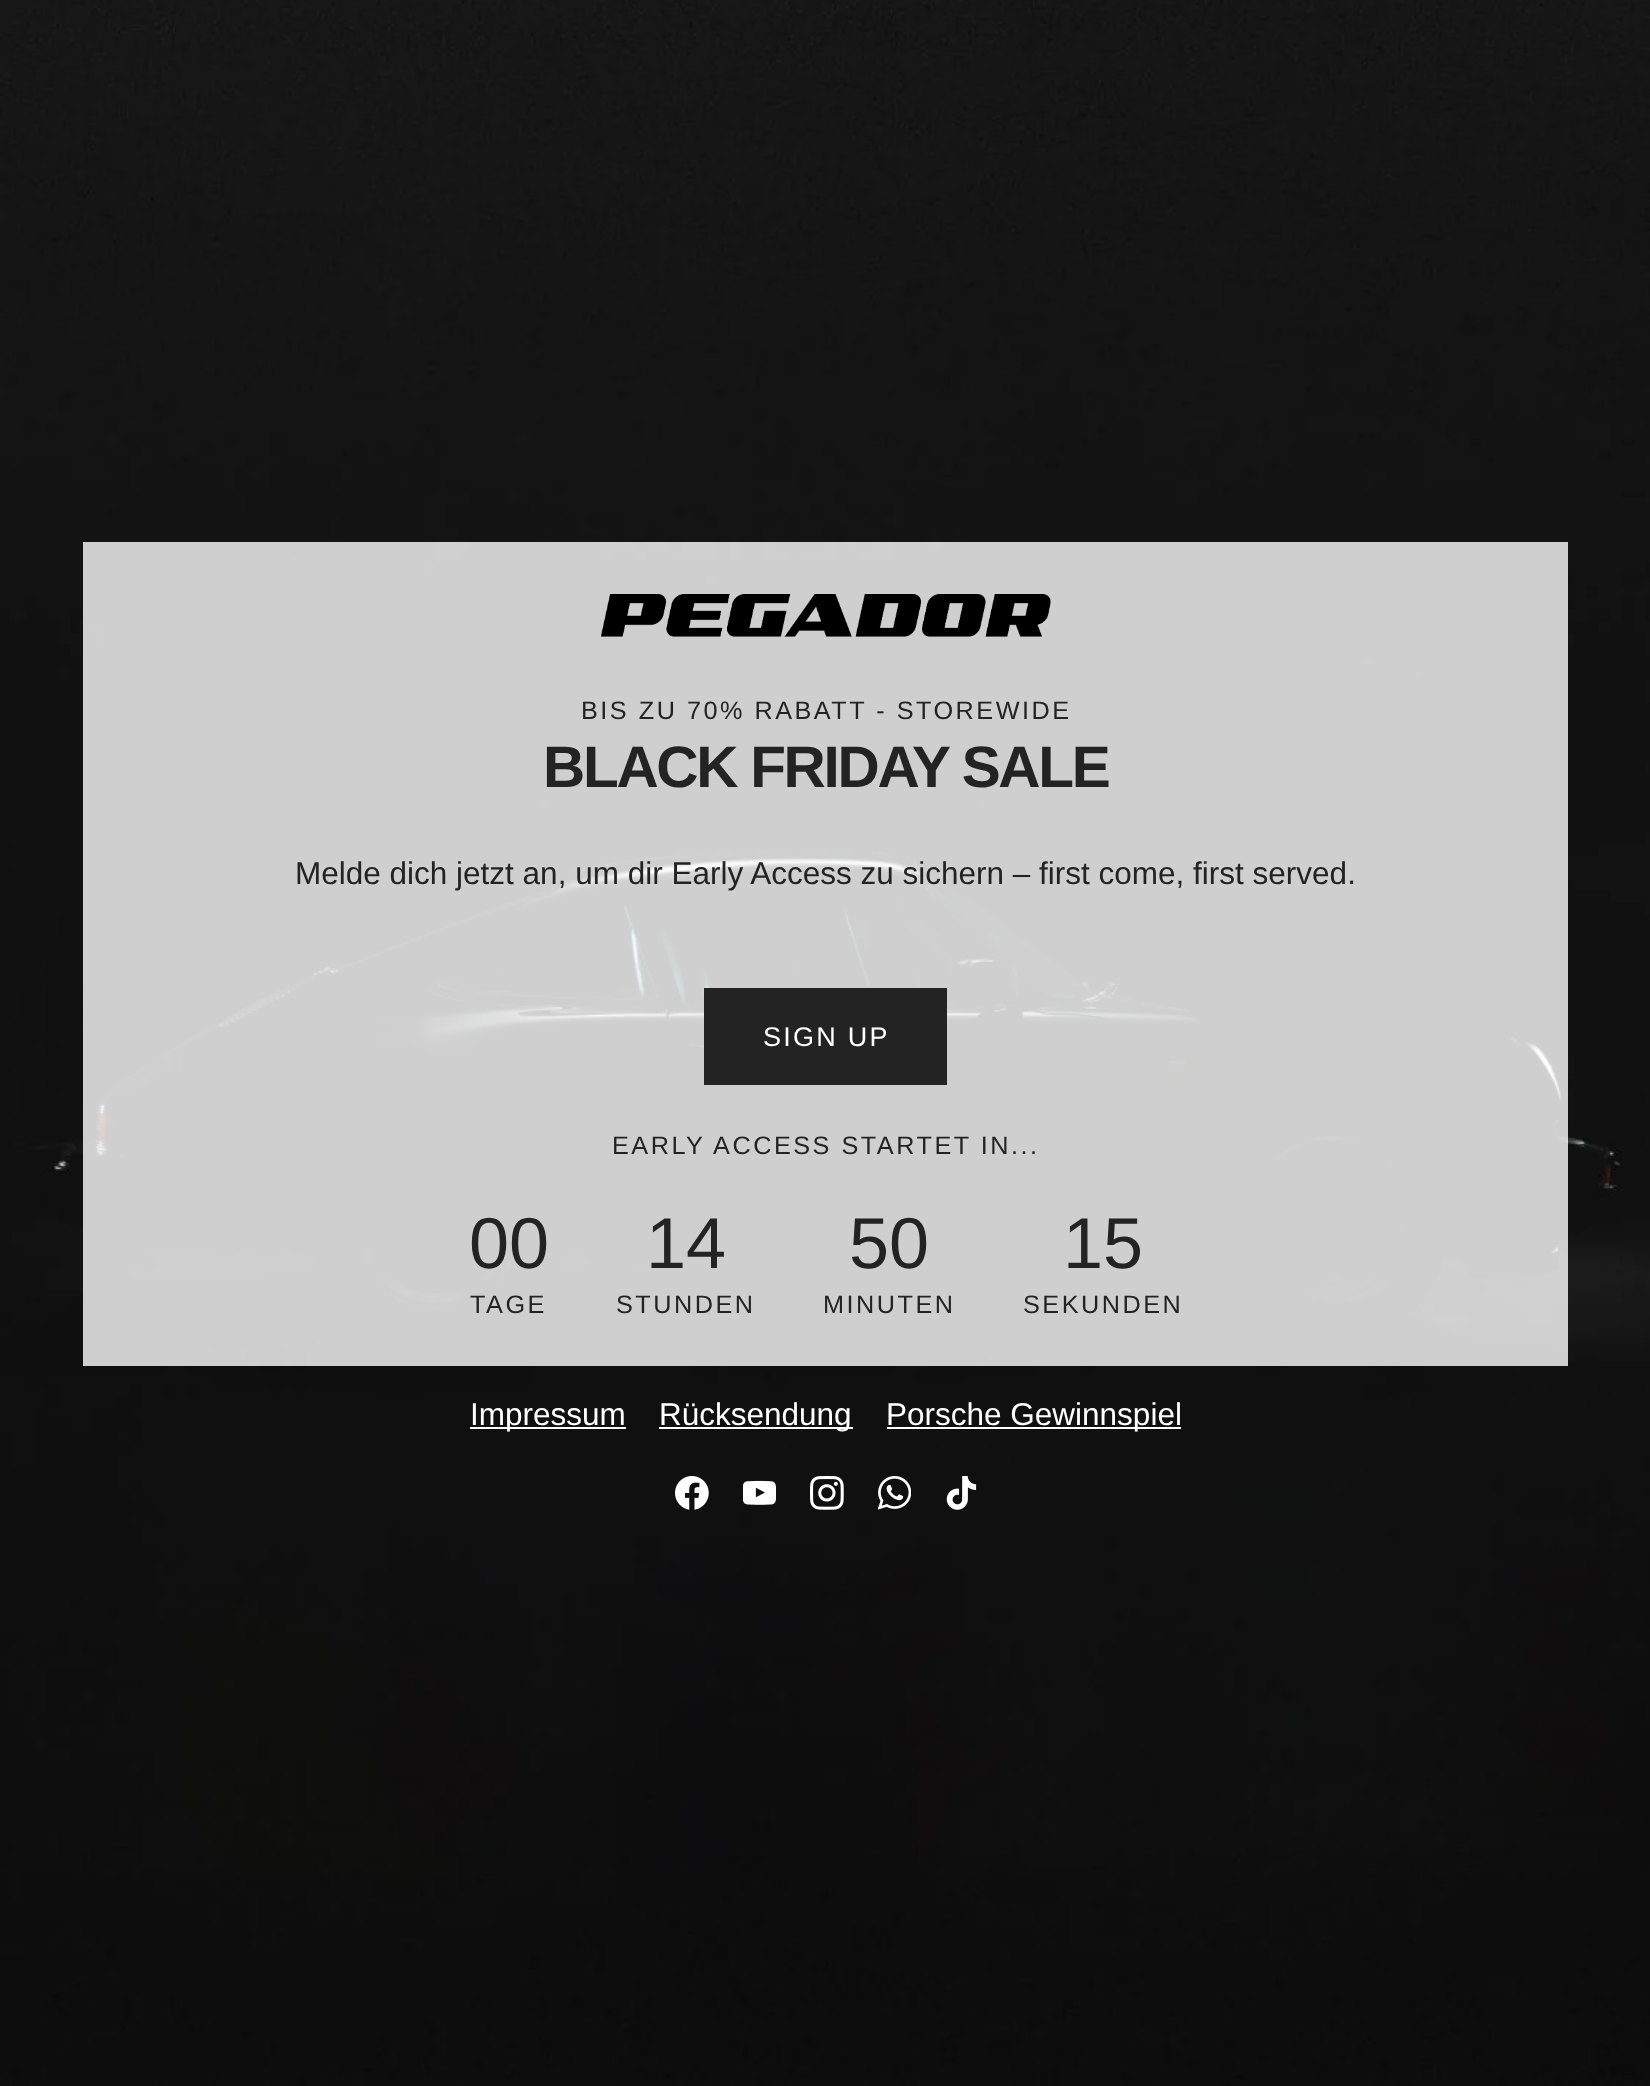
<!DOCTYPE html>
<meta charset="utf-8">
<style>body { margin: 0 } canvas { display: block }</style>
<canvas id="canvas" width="1650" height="2086"></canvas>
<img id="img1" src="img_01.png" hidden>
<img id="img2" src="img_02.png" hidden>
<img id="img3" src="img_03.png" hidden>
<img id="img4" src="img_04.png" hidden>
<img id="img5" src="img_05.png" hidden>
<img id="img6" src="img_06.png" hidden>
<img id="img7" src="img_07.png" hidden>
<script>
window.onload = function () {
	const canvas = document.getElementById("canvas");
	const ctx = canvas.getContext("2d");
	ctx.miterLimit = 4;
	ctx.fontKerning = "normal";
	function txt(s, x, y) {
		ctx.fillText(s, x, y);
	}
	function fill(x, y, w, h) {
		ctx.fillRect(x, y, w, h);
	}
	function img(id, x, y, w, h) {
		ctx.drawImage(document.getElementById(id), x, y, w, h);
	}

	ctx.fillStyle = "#FFFFFF";
	fill(0, 0, 1650, 2086);
	img("img1", 0, 0, 1650, 2086);
	ctx.fillStyle = "rgba(255, 255, 255, 0.8)";
	fill(83, 542, 1485, 824);
	img("img2", 601, 594, 450, 43);
	ctx.fillStyle = "#232323";
	fill(704, 988, 243, 97);
	ctx.fillStyle = "#FFFFFF";
	fill(470, 1427, 156, 2);
	fill(659, 1427, 194, 2);
	fill(887, 1427, 294, 2);
	img("img3", 675, 1476, 34, 34);
	img("img4", 743, 1480, 33, 25);
	img("img5", 810, 1476, 34, 34);
	img("img6", 878, 1476, 33, 34);
	img("img7", 946, 1476, 31, 34);
	ctx.letterSpacing = "2.5px";
	ctx.font = "25.25px Liberation Sans";
	ctx.fillStyle = "#232323";
	txt("BIS ZU 70% RABATT - STOREWIDE", 581, 719);
	ctx.letterSpacing = "-2.3px";
	ctx.font = "bold 58.5px Liberation Sans";
	txt("BLACK FRIDAY SALE", 543, 787);
	ctx.letterSpacing = "0px";
	ctx.font = "31.5px Liberation Sans";
	txt("Melde dich jetzt an, um dir Early Access zu sichern – first come, first served.", 295, 884);
	ctx.letterSpacing = "2.25px";
	ctx.font = "27px Liberation Sans";
	ctx.fillStyle = "#FFFFFF";
	txt("SIGN UP", 763, 1046);
	ctx.letterSpacing = "2.5px";
	ctx.font = "25.25px Liberation Sans";
	ctx.fillStyle = "#232323";
	txt("EARLY ACCESS STARTET IN...", 612, 1154);
	ctx.letterSpacing = "0px";
	ctx.font = "72px Liberation Sans";
	txt("00", 469, 1268);
	ctx.letterSpacing = "2.5px";
	ctx.font = "25.25px Liberation Sans";
	txt("TAGE", 470, 1313);
	ctx.letterSpacing = "0px";
	ctx.font = "72px Liberation Sans";
	txt("14", 646, 1268);
	ctx.letterSpacing = "2.5px";
	ctx.font = "25.25px Liberation Sans";
	txt("STUNDEN", 616, 1313);
	ctx.letterSpacing = "0px";
	ctx.font = "72px Liberation Sans";
	txt("50", 849, 1268);
	ctx.letterSpacing = "2.5px";
	ctx.font = "25.25px Liberation Sans";
	txt("MINUTEN", 823, 1313);
	ctx.letterSpacing = "0px";
	ctx.font = "72px Liberation Sans";
	txt("15", 1063, 1268);
	ctx.letterSpacing = "2.5px";
	ctx.font = "25.25px Liberation Sans";
	txt("SEKUNDEN", 1023, 1313);
	ctx.letterSpacing = "0px";
	ctx.font = "31.5px Liberation Sans";
	ctx.fillStyle = "#FFFFFF";
	txt("Impressum", 470, 1425);
	txt("Rücksendung", 659, 1425);
	txt("Porsche Gewinnspiel", 886, 1425);
};
</script>
